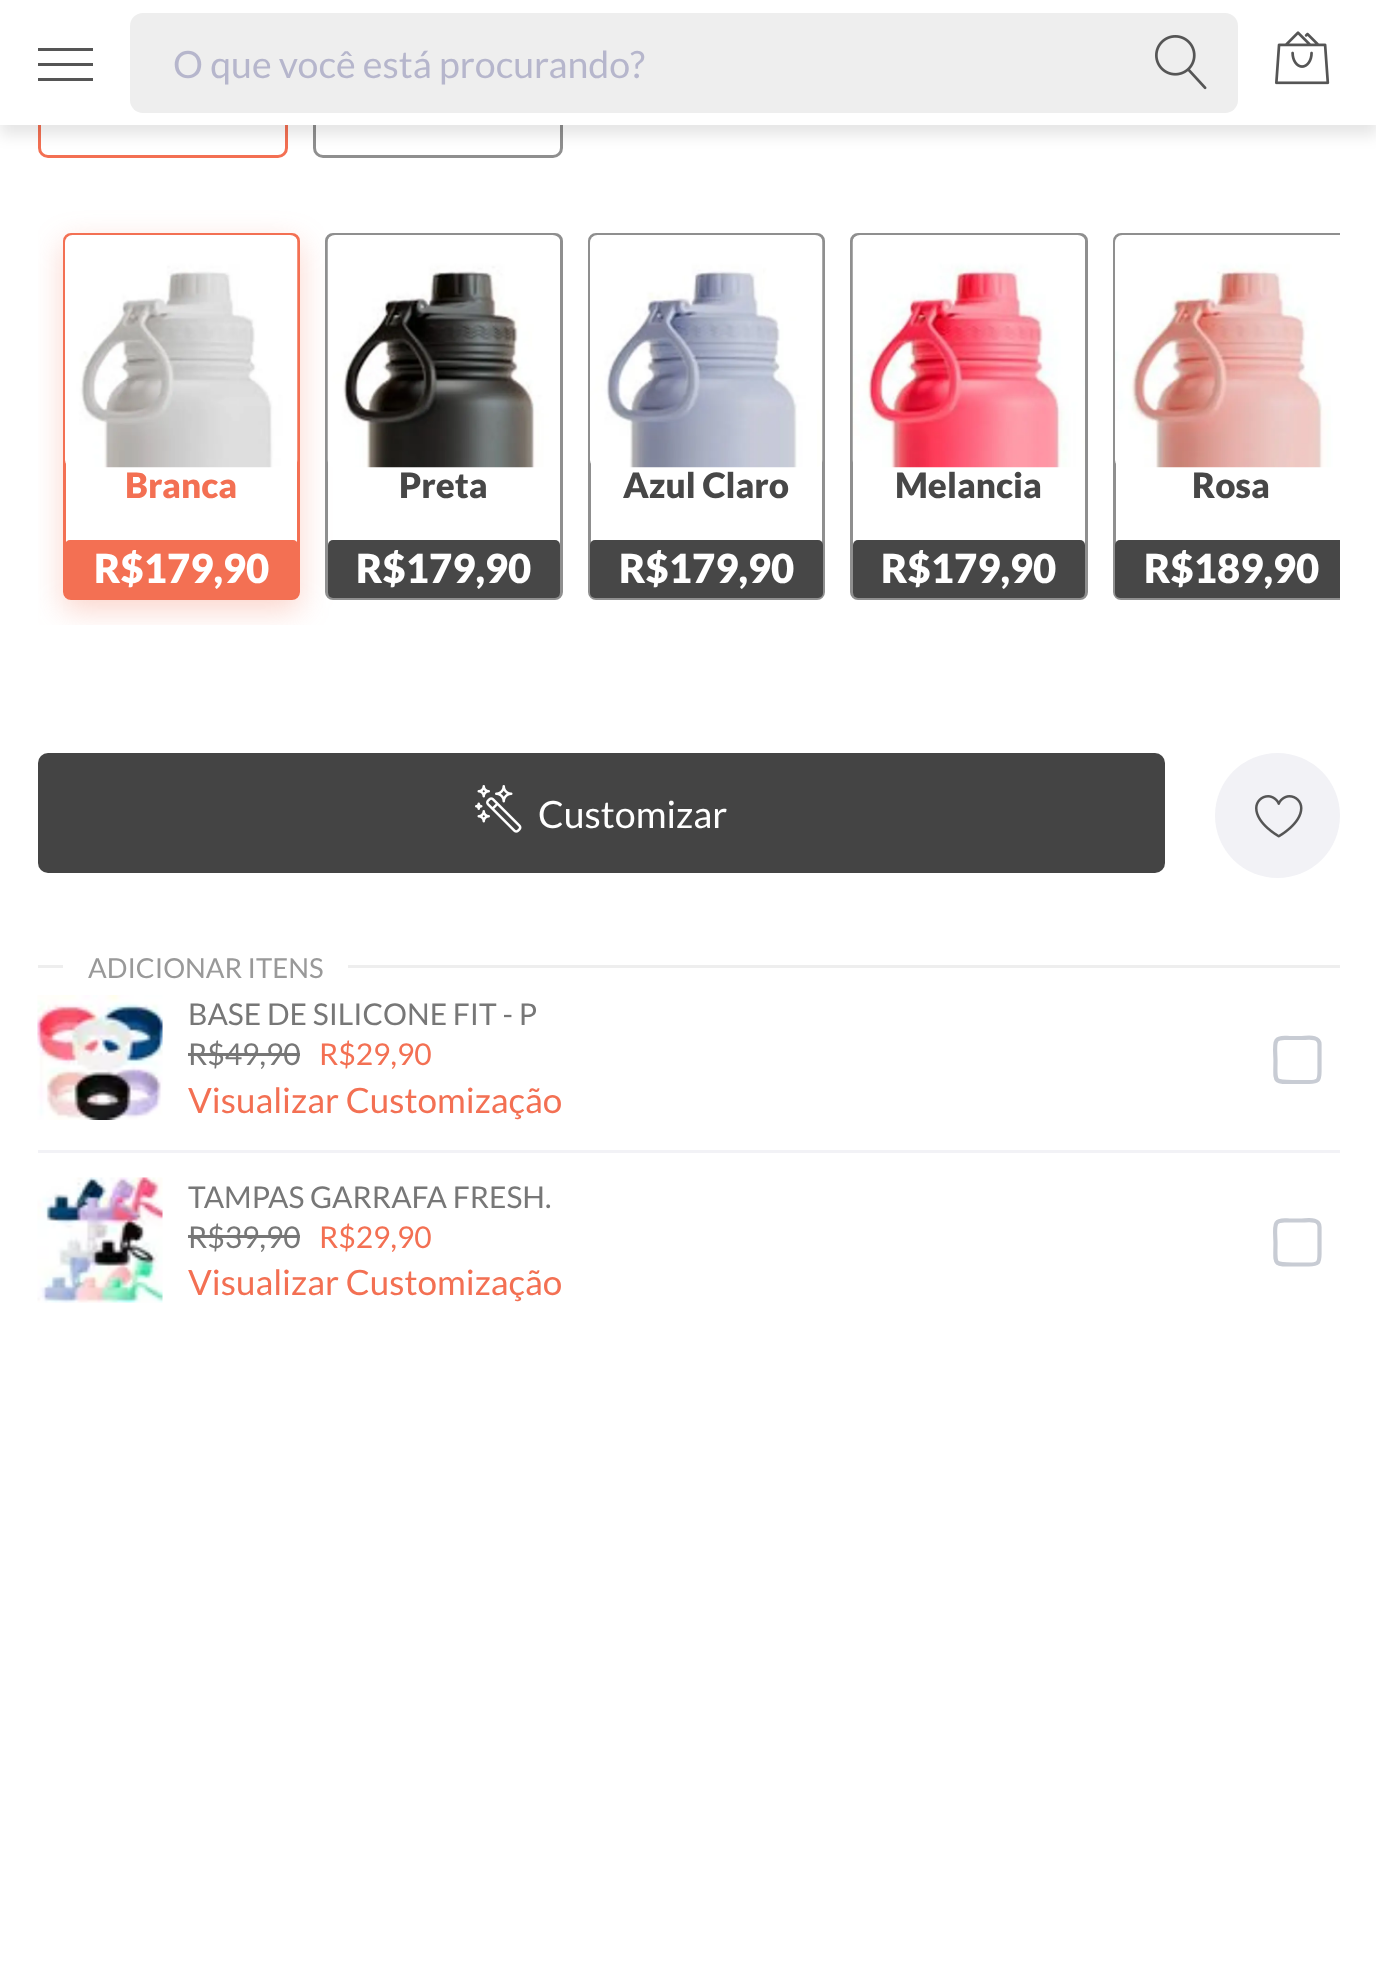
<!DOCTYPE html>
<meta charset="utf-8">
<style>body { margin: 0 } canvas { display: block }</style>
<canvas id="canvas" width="1376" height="1961"></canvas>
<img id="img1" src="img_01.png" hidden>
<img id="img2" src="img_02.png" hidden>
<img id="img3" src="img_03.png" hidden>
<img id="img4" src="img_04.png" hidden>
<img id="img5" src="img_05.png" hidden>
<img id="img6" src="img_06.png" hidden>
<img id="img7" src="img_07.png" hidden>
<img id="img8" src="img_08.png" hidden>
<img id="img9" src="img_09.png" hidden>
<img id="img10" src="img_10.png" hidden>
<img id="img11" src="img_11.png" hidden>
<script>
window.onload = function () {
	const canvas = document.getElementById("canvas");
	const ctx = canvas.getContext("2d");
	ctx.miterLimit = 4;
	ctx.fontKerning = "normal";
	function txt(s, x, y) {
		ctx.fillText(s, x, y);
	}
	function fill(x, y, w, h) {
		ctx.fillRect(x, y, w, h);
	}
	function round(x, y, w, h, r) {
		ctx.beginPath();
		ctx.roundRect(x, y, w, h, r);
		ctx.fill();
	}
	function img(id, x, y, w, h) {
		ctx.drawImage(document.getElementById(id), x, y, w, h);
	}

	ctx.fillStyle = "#FFFFFF";
	fill(0, 0, 1376, 1961);
	ctx.beginPath();
	ctx.roundRect(39.5, 79.5, 247, 77, 8.5);
	ctx.strokeStyle = "#F37053";
	ctx.lineWidth = 3;
	ctx.stroke();
	ctx.beginPath();
	ctx.roundRect(314.5, 79.5, 247, 77, 8.5);
	ctx.strokeStyle = "#8F8F8F";
	ctx.stroke();
	ctx.fillStyle = "rgba(0, 0, 0, 0.1)";
	ctx.filter = "blur(7.5px)";
	ctx.beginPath();
	ctx.rect(0, 10, 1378, 125);
	ctx.fill();
	ctx.filter = "none";
	ctx.fillStyle = "#FFFFFF";
	fill(0, 0, 1376, 125);
	ctx.fillStyle = "#555555";
	fill(38, 63, 55, 3);
	fill(38, 48, 55, 3);
	fill(38, 78, 55, 3);
	ctx.fillStyle = "#EEEEEE";
	round(130, 13, 1108, 100, 13);
	img("img1", 1155, 35, 52, 55);
	img("img2", 1275, 31, 55, 54);
	ctx.save();
	ctx.beginPath();
	ctx.rect(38, 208, 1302, 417);
	ctx.clip();
	ctx.beginPath();
	ctx.moveTo(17, 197);
	ctx.lineTo(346, 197);
	ctx.lineTo(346, 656);
	ctx.lineTo(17, 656);
	ctx.closePath();
	ctx.moveTo(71, 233);
	ctx.lineTo(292, 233);
	ctx.bezierCurveTo(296.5, 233, 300, 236.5, 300, 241);
	ctx.lineTo(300, 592);
	ctx.bezierCurveTo(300, 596.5, 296.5, 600, 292, 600);
	ctx.lineTo(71, 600);
	ctx.bezierCurveTo(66.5, 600, 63, 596.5, 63, 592);
	ctx.lineTo(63, 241);
	ctx.bezierCurveTo(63, 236.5, 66.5, 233, 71, 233);
	ctx.closePath();
	ctx.clip("evenodd");
	ctx.fillStyle = "rgba(243, 112, 83, 0.3)";
	ctx.filter = "blur(15px)";
	ctx.beginPath();
	ctx.roundRect(63, 243, 237, 367, 8);
	ctx.fill();
	ctx.filter = "none";
	ctx.restore();
	ctx.beginPath();
	ctx.roundRect(64.5, 234.5, 234, 364, 6.5);
	ctx.strokeStyle = "#F37053";
	ctx.stroke();
	img("img3", 65, 235, 233, 233);
	ctx.fillStyle = "#F37053";
	round(65, 540, 233, 58, 5);
	ctx.beginPath();
	ctx.roundRect(326.5, 234.5, 235, 364, 6.5);
	ctx.strokeStyle = "#8F8F8F";
	ctx.stroke();
	img("img4", 327, 235, 233, 233);
	ctx.fillStyle = "#474747";
	round(328, 540, 232, 58, 5);
	ctx.beginPath();
	ctx.roundRect(589.5, 234.5, 234, 364, 6.5);
	ctx.stroke();
	img("img5", 590, 235, 233, 233);
	round(590, 540, 233, 58, 5);
	ctx.beginPath();
	ctx.roundRect(851.5, 234.5, 235, 364, 6.5);
	ctx.stroke();
	img("img6", 852, 235, 233, 233);
	round(853, 540, 232, 58, 5);
	ctx.save();
	ctx.beginPath();
	ctx.rect(38, 208, 1302, 417);
	ctx.clip();
	ctx.beginPath();
	ctx.roundRect(1114.5, 234.5, 234, 364, 6.5);
	ctx.stroke();
	ctx.restore();
	img("img7", 1115, 235, 225, 233);
	ctx.beginPath();
	ctx.roundRect(1115, 540, 225, 58, [5, 0, 0, 5]);
	ctx.fill();
	ctx.fillStyle = "#444444";
	round(38, 753, 1127, 120, 10);
	img("img8", 475, 785, 47, 48);
	ctx.fillStyle = "#F2F2F6";
	ctx.beginPath();
	ctx.arc(1277.5, 815.5, 62.5, 0, Math.PI * 2);
	ctx.fill();
	img("img9", 1255, 795, 48, 43);
	ctx.fillStyle = "#EEEEEE";
	fill(38, 965, 1302, 3);
	ctx.fillStyle = "#FFFFFF";
	fill(63, 965, 285, 3);
	ctx.fillStyle = "#F2F2F6";
	fill(38, 1150, 1302, 3);
	img("img10", 37, 995, 126, 125);
	ctx.fillStyle = "#777777";
	fill(188, 1053, 112, 3);
	ctx.beginPath();
	ctx.moveTo(1275.5, 1060);
	ctx.bezierCurveTo(1275.5, 1055.5, 1274, 1044, 1276.5, 1040.5);
	ctx.bezierCurveTo(1279, 1036.5, 1285.5, 1038, 1290, 1038);
	ctx.lineTo(1301.5, 1038);
	ctx.bezierCurveTo(1307.5, 1038, 1319.5, 1035.5, 1319.5, 1044.5);
	ctx.lineTo(1319.5, 1071.5);
	ctx.bezierCurveTo(1319.5, 1080.5, 1318, 1082, 1309, 1082);
	ctx.lineTo(1297.5, 1082);
	ctx.bezierCurveTo(1272, 1082, 1275.5, 1083.5, 1275.5, 1060);
	ctx.strokeStyle = "#C8CCD4";
	ctx.lineWidth = 4.2;
	ctx.lineCap = "round";
	ctx.lineJoin = "round";
	ctx.stroke();
	img("img11", 37, 1177, 126, 126);
	fill(188, 1235, 112, 3);
	ctx.beginPath();
	ctx.moveTo(1275.5, 1242.5);
	ctx.bezierCurveTo(1275.5, 1238, 1274, 1226.5, 1276.5, 1223);
	ctx.bezierCurveTo(1279, 1219, 1285.5, 1220.5, 1290, 1220.5);
	ctx.lineTo(1301.5, 1220.5);
	ctx.bezierCurveTo(1307.5, 1220.5, 1319.5, 1218, 1319.5, 1227);
	ctx.lineTo(1319.5, 1254);
	ctx.bezierCurveTo(1319.5, 1263, 1318, 1264.5, 1309, 1264.5);
	ctx.lineTo(1297.5, 1264.5);
	ctx.bezierCurveTo(1272, 1264.5, 1275.5, 1266, 1275.5, 1242.5);
	ctx.stroke();
	ctx.font = "37.5px Lato";
	ctx.fillStyle = "#B6B6CC";
	txt("O que você está procurando?", 173, 78);
	ctx.font = "900 35px Lato";
	ctx.fillStyle = "#F37053";
	txt("Branca", 125, 498);
	ctx.font = "900 40px Lato";
	ctx.fillStyle = "#FFFFFF";
	txt("R$179,90", 94, 583);
	ctx.font = "900 35px Lato";
	ctx.fillStyle = "#474747";
	txt("Preta", 399, 498);
	ctx.font = "900 40px Lato";
	ctx.fillStyle = "#FFFFFF";
	txt("R$179,90", 356, 583);
	ctx.font = "900 35px Lato";
	ctx.fillStyle = "#474747";
	txt("Azul Claro", 623, 498);
	ctx.font = "900 40px Lato";
	ctx.fillStyle = "#FFFFFF";
	txt("R$179,90", 619, 583);
	ctx.font = "900 35px Lato";
	ctx.fillStyle = "#474747";
	txt("Melancia", 895, 498);
	ctx.font = "900 40px Lato";
	ctx.fillStyle = "#FFFFFF";
	txt("R$179,90", 881, 583);
	ctx.font = "900 35px Lato";
	ctx.fillStyle = "#474747";
	txt("Rosa", 1192, 498);
	ctx.font = "900 40px Lato";
	ctx.fillStyle = "#FFFFFF";
	txt("R$189,90", 1144, 583);
	ctx.font = "37.5px Lato";
	txt("Customizar", 538, 828);
	ctx.font = "27.5px Lato";
	ctx.fillStyle = "#999999";
	txt("ADICIONAR ITENS", 88, 978);
	ctx.font = "30px Lato";
	ctx.fillStyle = "#777777";
	txt("BASE DE SILICONE FIT - P", 188, 1025);
	txt("R$49,90", 188, 1065);
	ctx.fillStyle = "#F37053";
	txt("R$29,90", 319, 1065);
	ctx.font = "35px Lato";
	txt("Visualizar Customização", 188, 1113);
	ctx.font = "30px Lato";
	ctx.fillStyle = "#777777";
	txt("TAMPAS GARRAFA FRESH.", 188, 1208);
	txt("R$39,90", 188, 1248);
	ctx.fillStyle = "#F37053";
	txt("R$29,90", 319, 1248);
	ctx.font = "35px Lato";
	txt("Visualizar Customização", 188, 1295);
};
</script>
